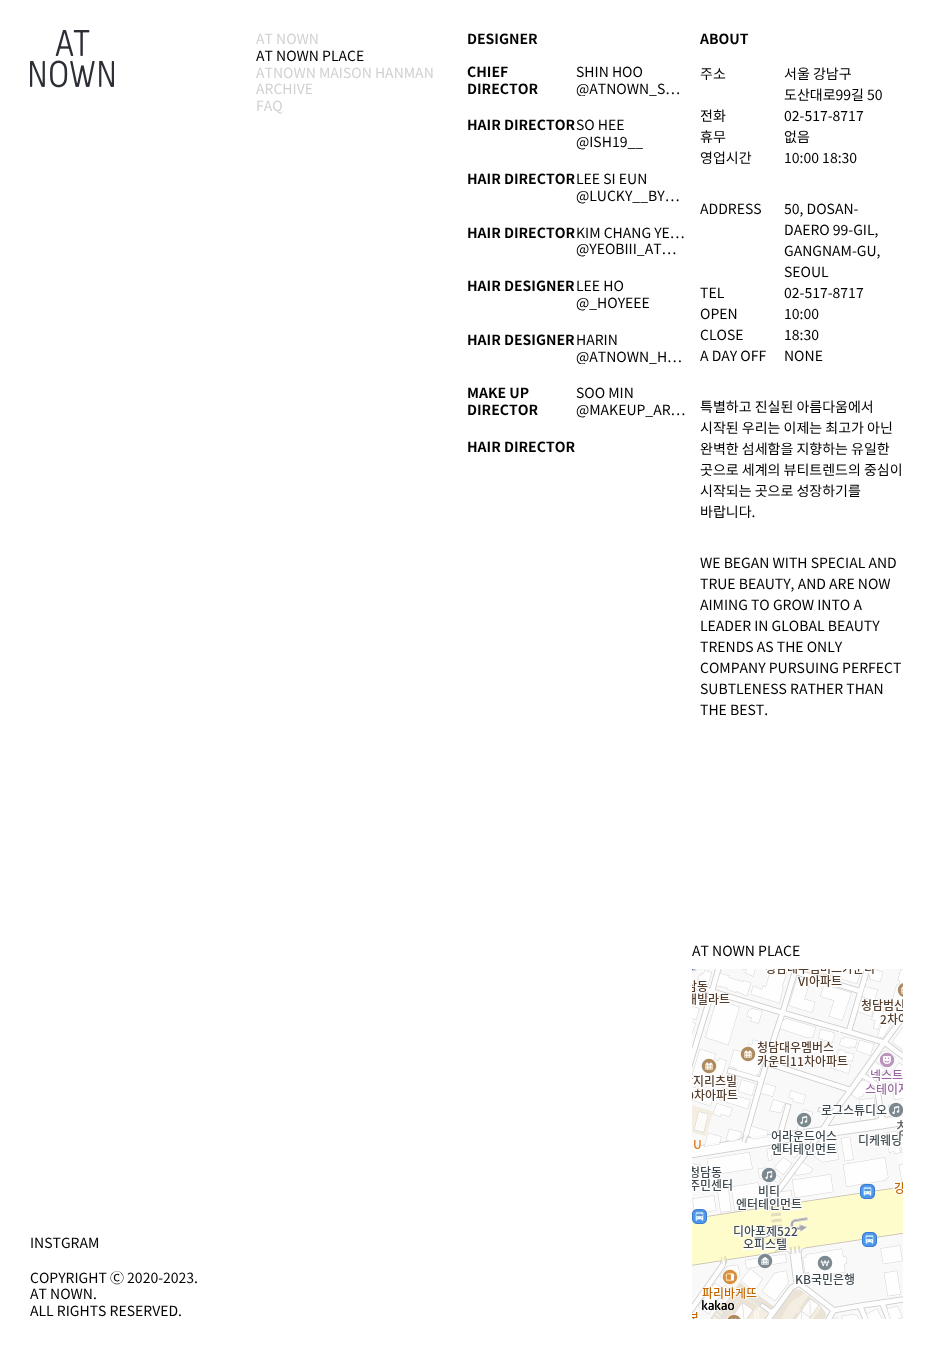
<!DOCTYPE html>
<meta charset="utf-8">
<style>body { margin: 0 } canvas { display: block }</style>
<canvas id="canvas" width="933" height="1349"></canvas>
<img id="img1" src="img_01.png" hidden>
<img id="img2" src="img_02.png" hidden>
<img id="img3" src="img_03.png" hidden>
<img id="img4" src="img_04.png" hidden>
<img id="img5" src="img_05.png" hidden>
<img id="img6" src="img_06.png" hidden>
<img id="img7" src="img_07.png" hidden>
<script>
window.onload = function () {
	const canvas = document.getElementById("canvas");
	const ctx = canvas.getContext("2d");
	ctx.miterLimit = 4;
	ctx.fontKerning = "none";
	function txt(s, x, y) {
		ctx.fillText(s, x, y);
	}
	function fill(x, y, w, h) {
		ctx.fillRect(x, y, w, h);
	}
	function img(id, x, y, w, h) {
		ctx.drawImage(document.getElementById(id), x, y, w, h);
	}

	ctx.fillStyle = "#FFFFFF";
	fill(0, 0, 933, 1349);
	img("img1", 30, 30, 84, 58);
	img("img2", 692, 969, 135, 101);
	img("img3", 827, 969, 76, 101);
	img("img4", 692, 1070, 135, 249);
	img("img5", 827, 1070, 76, 249);
	img("img6", 692, 969, 5, 3);
	img("img7", 702, 1300, 32, 10);
	ctx.font = "14px Noto Sans KR";
	ctx.fillStyle = "#D1D1D1";
	txt("AT NOWN", 256, 44);
	ctx.fillStyle = "#000000";
	txt("AT NOWN PLACE", 256, 61);
	ctx.fillStyle = "#D1D1D1";
	txt("ATNOWN MAISON HANMAN", 256, 78);
	txt("ARCHIVE", 256, 94);
	txt("FAQ", 256, 111);
	ctx.fillStyle = "#000000";
	txt("INSTGRAM", 30, 1248);
	txt("COPYRIGHT Ⓒ 2020-2023.", 30, 1283);
	txt("AT NOWN.", 30, 1299);
	txt("ALL RIGHTS RESERVED.", 30, 1316);
	ctx.font = "bold 14px Noto Sans KR";
	txt("DESIGNER", 467, 44);
	txt("CHIEF", 467, 77);
	txt("DIRECTOR", 467, 94);
	ctx.font = "14px Noto Sans KR";
	txt("SHIN HOO", 576, 77);
	ctx.save();
	ctx.beginPath();
	ctx.rect(576, 80, 109, 16);
	ctx.clip();
	txt("@ATNOWN_S…", 576, 94);
	ctx.restore();
	ctx.font = "bold 14px Noto Sans KR";
	txt("HAIR DIRECTOR", 467, 130);
	ctx.font = "14px Noto Sans KR";
	txt("SO HEE", 576, 130);
	txt("@ISH19__", 576, 147);
	ctx.font = "bold 14px Noto Sans KR";
	txt("HAIR DIRECTOR", 467, 184);
	ctx.font = "14px Noto Sans KR";
	txt("LEE SI EUN", 576, 184);
	txt("@LUCKY__BY…", 576, 201);
	ctx.font = "bold 14px Noto Sans KR";
	txt("HAIR DIRECTOR", 467, 238);
	ctx.font = "14px Noto Sans KR";
	txt("KIM CHANG YE…", 576, 238);
	txt("@YEOBIII_AT…", 576, 254);
	ctx.font = "bold 14px Noto Sans KR";
	txt("HAIR DESIGNER", 467, 291);
	ctx.font = "14px Noto Sans KR";
	txt("LEE HO", 576, 291);
	txt("@_HOYEEE", 576, 308);
	ctx.font = "bold 14px Noto Sans KR";
	txt("HAIR DESIGNER", 467, 345);
	ctx.font = "14px Noto Sans KR";
	txt("HARIN", 576, 345);
	ctx.save();
	ctx.beginPath();
	ctx.rect(576, 348, 109, 16);
	ctx.clip();
	txt("@ATNOWN_H…", 576, 362);
	ctx.restore();
	ctx.font = "bold 14px Noto Sans KR";
	txt("MAKE UP", 467, 398);
	txt("DIRECTOR", 467, 415);
	ctx.font = "14px Noto Sans KR";
	txt("SOO MIN", 576, 398);
	txt("@MAKEUP_AR…", 576, 415);
	ctx.font = "bold 14px Noto Sans KR";
	txt("HAIR DIRECTOR", 467, 452);
	txt("ABOUT", 700, 44);
	ctx.font = "14px Noto Sans KR";
	txt("주소", 700, 79);
	txt("서울 강남구", 784, 79);
	txt("도산대로99길 50", 784, 100);
	txt("전화", 700, 121);
	txt("02-517-8717", 784, 121);
	txt("휴무", 700, 142);
	txt("없음", 784, 142);
	txt("영업시간", 700, 163);
	txt("10:00 18:30", 784, 163);
	txt("ADDRESS", 700, 214);
	txt("50, DOSAN-", 784, 214);
	txt("DAERO 99-GIL,", 784, 235);
	txt("GANGNAM-GU,", 784, 256);
	txt("SEOUL", 784, 277);
	txt("TEL", 700, 298);
	txt("02-517-8717", 784, 298);
	txt("OPEN", 700, 319);
	txt("10:00", 784, 319);
	txt("CLOSE", 700, 340);
	txt("18:30", 784, 340);
	txt("A DAY OFF", 700, 361);
	txt("NONE", 784, 361);
	txt("특별하고 진실된 아름다움에서", 700, 412);
	txt("시작된 우리는 이제는 최고가 아닌", 700, 433);
	txt("완벽한 섬세함을 지향하는 유일한", 700, 454);
	txt("곳으로 세계의 뷰티트렌드의 중심이", 700, 475);
	txt("시작되는 곳으로 성장하기를", 700, 496);
	txt("바랍니다.", 700, 517);
	txt("WE BEGAN WITH SPECIAL AND", 700, 568);
	txt("TRUE BEAUTY, AND ARE NOW", 700, 589);
	txt("AIMING TO GROW INTO A", 700, 610);
	txt("LEADER IN GLOBAL BEAUTY", 700, 631);
	txt("TRENDS AS THE ONLY", 700, 652);
	txt("COMPANY PURSUING PERFECT", 700, 673);
	txt("SUBTLENESS RATHER THAN", 700, 694);
	txt("THE BEST.", 700, 715);
	txt("AT NOWN PLACE", 692, 956);
};
</script>
